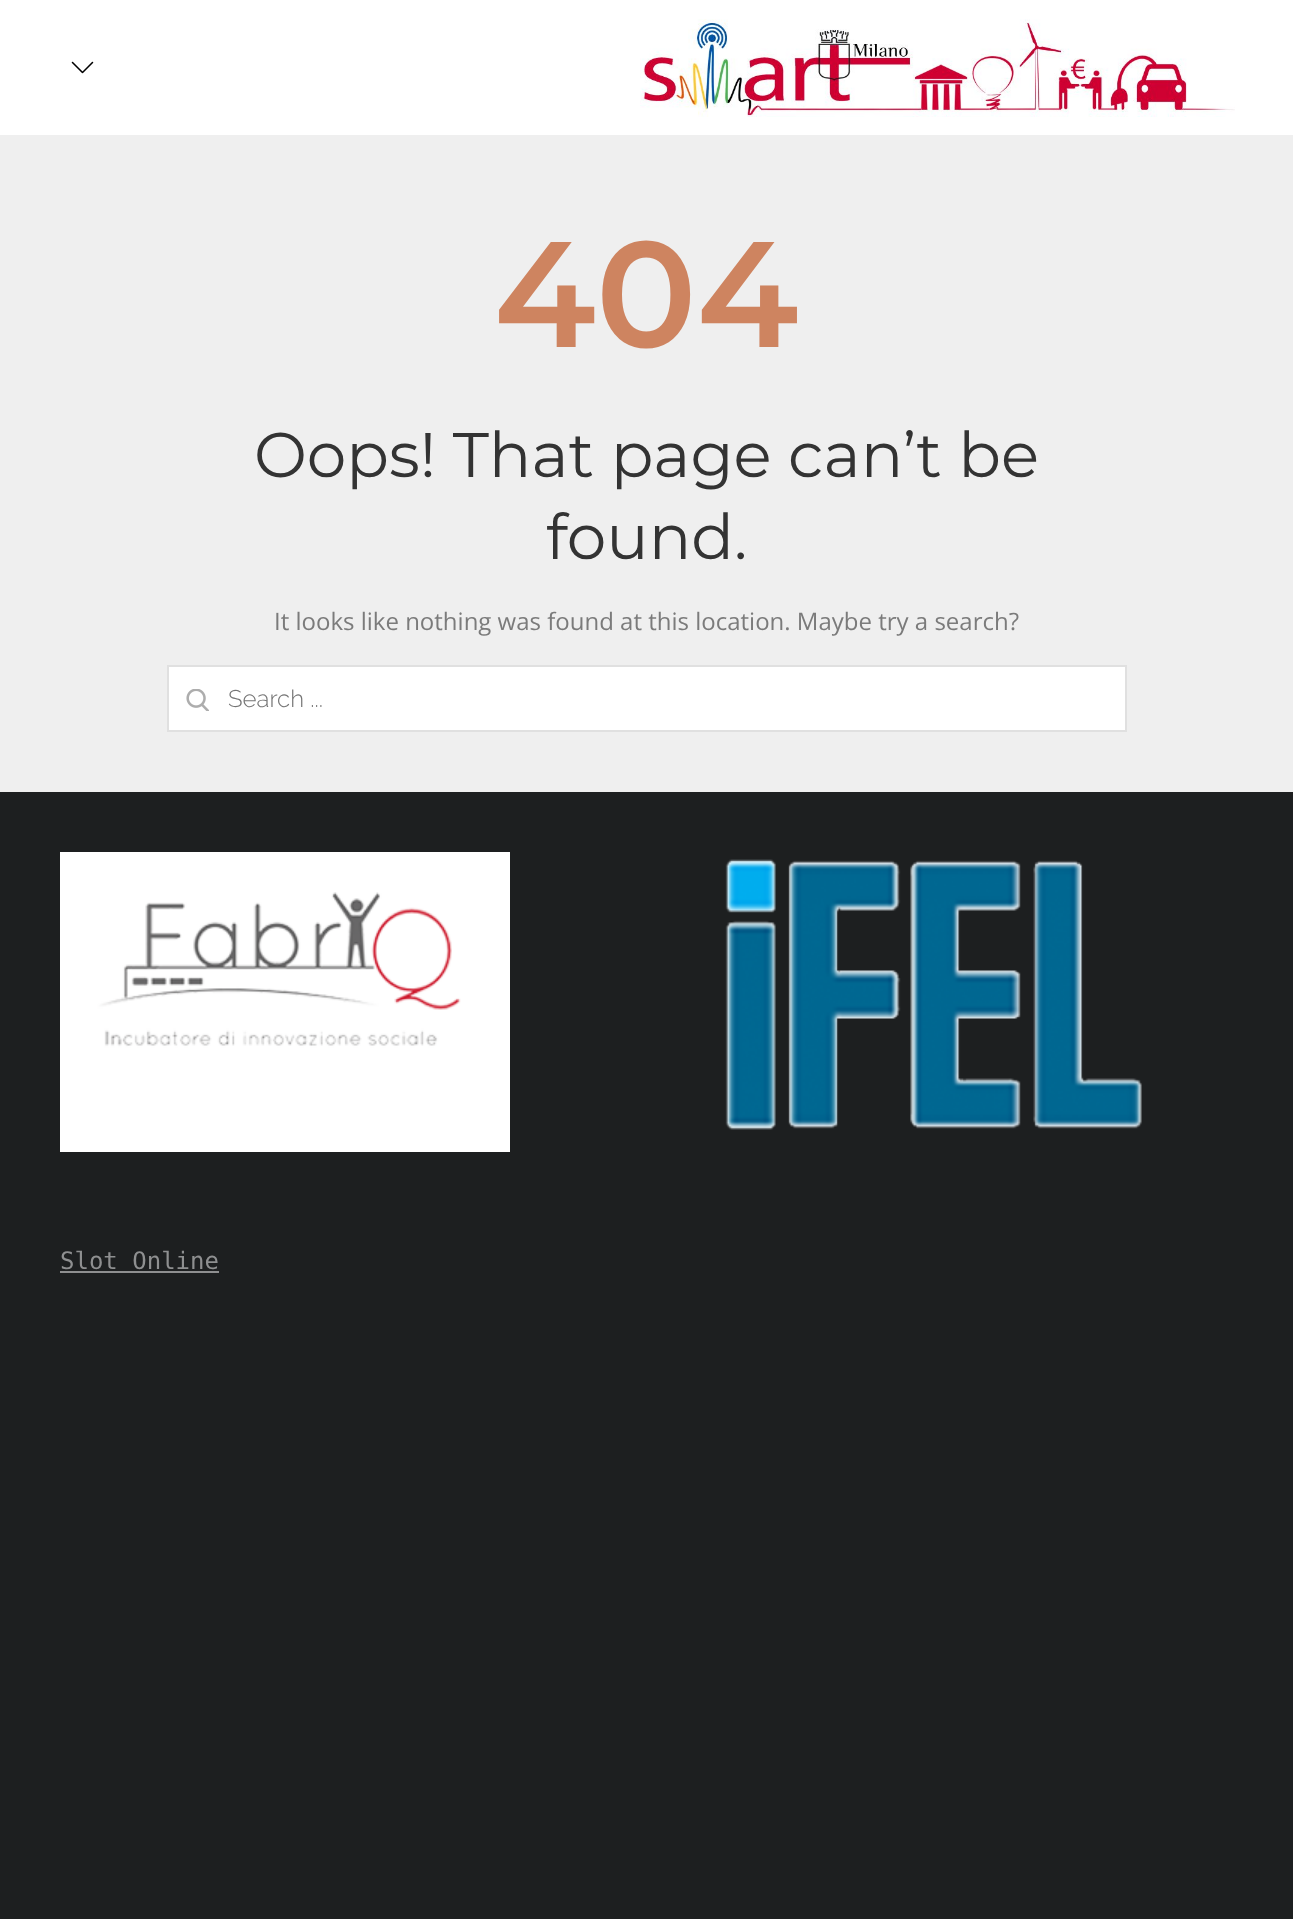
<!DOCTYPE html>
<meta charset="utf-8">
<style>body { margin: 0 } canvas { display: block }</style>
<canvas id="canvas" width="1293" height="1919"></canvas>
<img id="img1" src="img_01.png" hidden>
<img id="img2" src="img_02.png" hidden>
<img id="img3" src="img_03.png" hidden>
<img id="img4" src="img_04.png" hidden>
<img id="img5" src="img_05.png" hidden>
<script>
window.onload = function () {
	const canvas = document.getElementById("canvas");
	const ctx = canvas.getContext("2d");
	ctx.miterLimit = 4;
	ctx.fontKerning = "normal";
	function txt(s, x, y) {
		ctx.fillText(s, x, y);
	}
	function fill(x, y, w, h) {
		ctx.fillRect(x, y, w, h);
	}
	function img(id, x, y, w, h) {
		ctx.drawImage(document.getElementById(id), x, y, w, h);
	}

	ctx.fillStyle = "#EFEFEF";
	fill(0, 0, 1293, 1919);
	ctx.fillStyle = "#FFFFFF";
	fill(0, 0, 1293, 135);
	img("img1", 71, 61, 23, 13);
	img("img2", 640, 19, 595, 98);
	ctx.beginPath();
	ctx.rect(168, 666, 958, 65);
	ctx.fill();
	ctx.strokeStyle = "#E0E0E0";
	ctx.lineWidth = 2;
	ctx.stroke();
	img("img3", 186, 689, 23, 22);
	ctx.fillStyle = "#1D1F20";
	fill(0, 792, 1293, 1127);
	img("img4", 725, 859, 417, 271);
	img("img5", 60, 852, 450, 300);
	ctx.fillStyle = "#8E8F90";
	fill(60, 1271, 159, 2);
	ctx.font = "600 150px Montserrat";
	ctx.fillStyle = "#CE8460";
	txt("404", 494, 347);
	ctx.font = "63px Montserrat";
	ctx.fillStyle = "#333333";
	txt("Oops! That page can’t be", 254, 477);
	txt("found.", 546, 559);
	ctx.font = "24px Open Sans";
	ctx.fillStyle = "#7B7B7B";
	txt("It looks like nothing was found at this location. Maybe try a search?", 274, 630);
	ctx.font = "300 24px Raleway";
	ctx.fillStyle = "#757575";
	txt("Search ...", 228, 707);
	ctx.font = "24px DejaVu Sans Mono";
	ctx.fillStyle = "#8E8F90";
	txt("Slot Online", 60, 1269);
};
</script>
